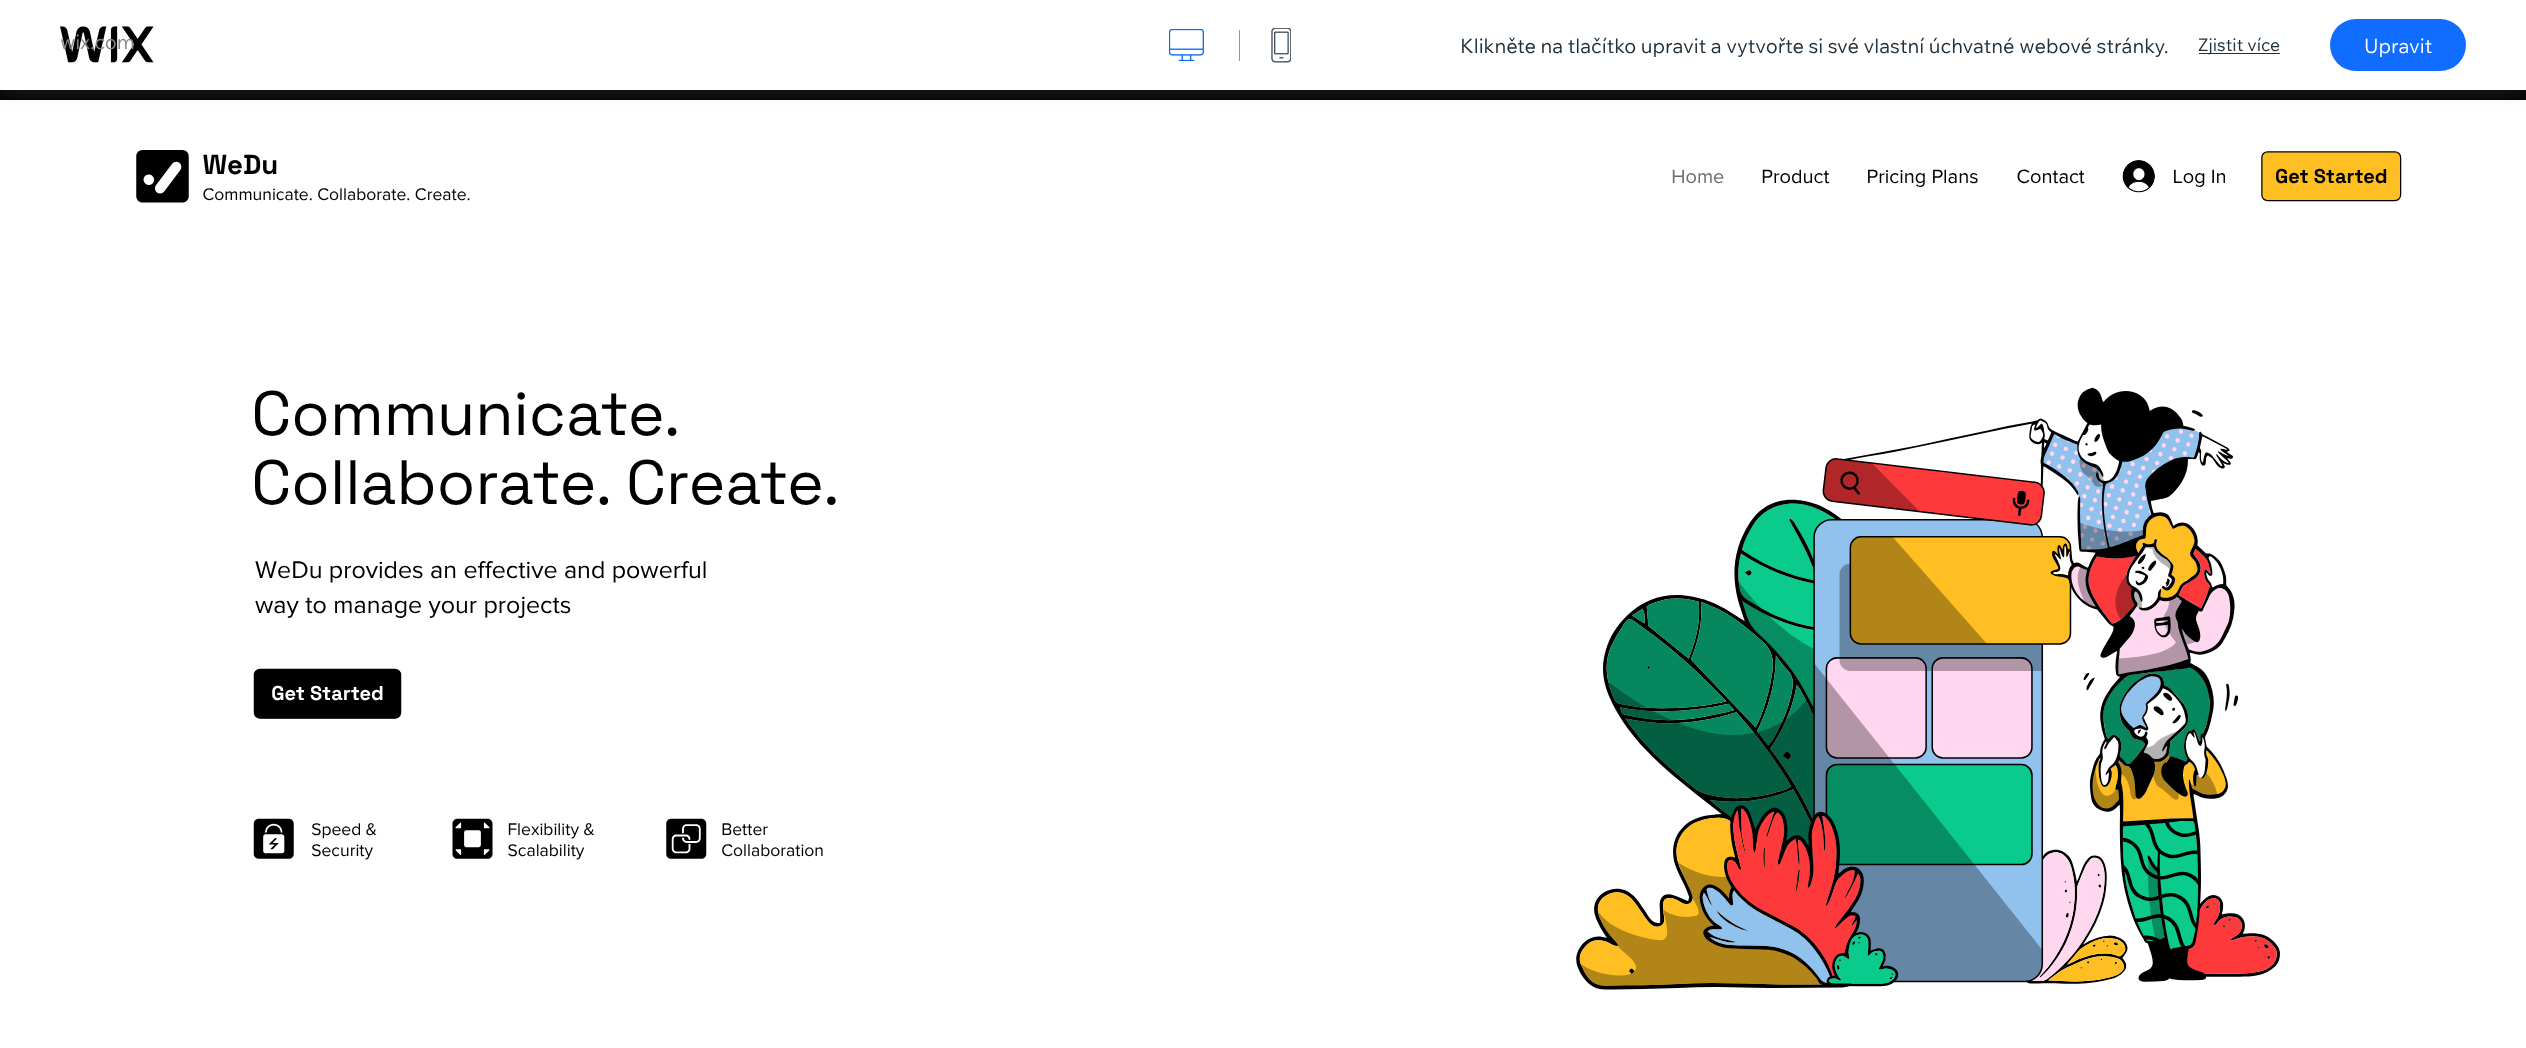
<!DOCTYPE html>
<meta charset="utf-8">
<style>body { margin: 0 } canvas { display: block }</style>
<canvas id="canvas" width="2526" height="1048"></canvas>
<img id="img1" src="img_04.png" hidden>
<img id="img2" src="img_01.png" hidden>
<img id="img3" src="img_02.png" hidden>
<img id="img4" src="img_03.png" hidden>
<script>
window.onload = function () {
	const canvas = document.getElementById("canvas");
	const ctx = canvas.getContext("2d");
	ctx.miterLimit = 4;
	ctx.fontKerning = "normal";
	function txt(s, x, y) {
		ctx.fillText(s, x, y);
	}
	function fill(x, y, w, h) {
		ctx.fillRect(x, y, w, h);
	}
	function round(x, y, w, h, r) {
		ctx.beginPath();
		ctx.roundRect(x, y, w, h, r);
		ctx.fill();
	}
	function img(id, x, y, w, h) {
		ctx.drawImage(document.getElementById(id), x, y, w, h);
	}

	ctx.fillStyle = "#FFFFFF";
	fill(0, 0, 2526, 1048);
	img("img1", 0, 90, 2526, 958);
	ctx.fillStyle = "rgba(129, 162, 182, 0.2)";
	ctx.filter = "blur(11px)";
	ctx.beginPath();
	ctx.rect(0, 3, 2526, 90);
	ctx.fill();
	ctx.filter = "none";
	ctx.fillStyle = "#FFFFFF";
	fill(0, 0, 2526, 90);
	img("img2", 60, 26, 94, 37);
	img("img3", 1169, 29, 35, 32);
	ctx.fillStyle = "#90989E";
	fill(1239, 30, 1, 31);
	img("img4", 1271, 28, 20, 35);
	ctx.fillStyle = "#20303C";
	fill(2199, 53, 81, 1);
	ctx.fillStyle = "#116DFF";
	round(2330, 19, 136, 52, 26);
	ctx.font = "20px Wix Madefor Text";
	ctx.fillStyle = "#878787";
	txt("wix.com", 60, 49);
	ctx.fillStyle = "#20303C";
	txt("Klikněte na tlačítko upravit a vytvořte si své vlastní úchvatné webové stránky.", 1460, 53);
	ctx.font = "17.5px Wix Madefor Text";
	txt("Zjistit více", 2198, 51);
	ctx.font = "20px Wix Madefor Text";
	ctx.fillStyle = "#FFFFFF";
	txt("Upravit", 2364, 53);
};
</script>
